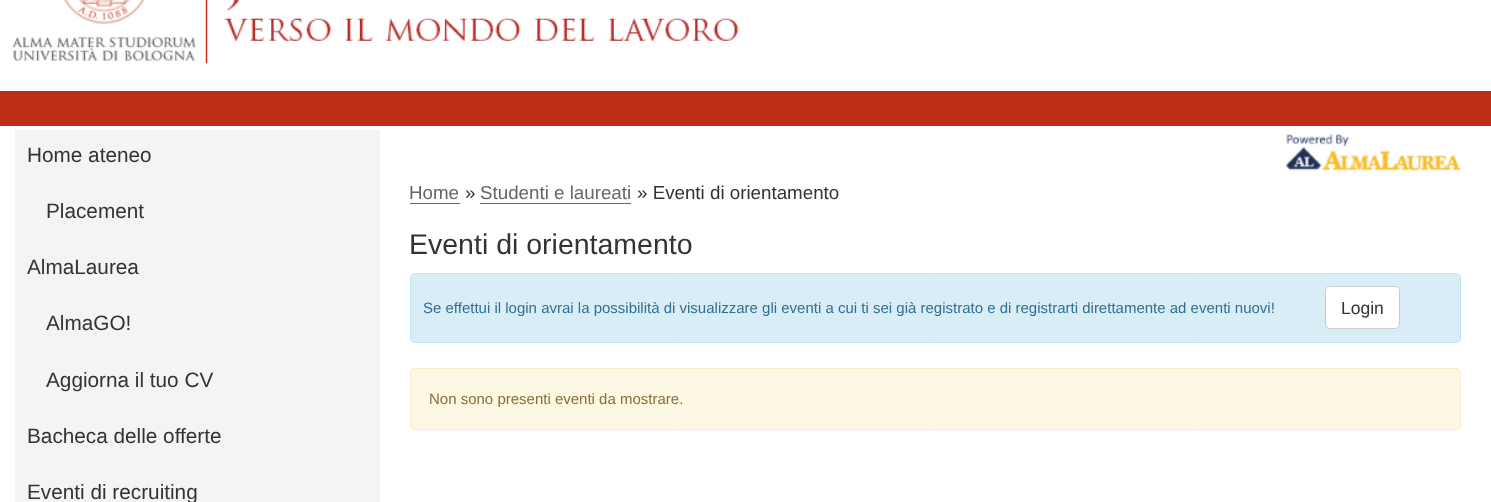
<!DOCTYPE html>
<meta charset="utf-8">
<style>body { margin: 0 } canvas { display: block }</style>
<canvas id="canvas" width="1491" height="502"></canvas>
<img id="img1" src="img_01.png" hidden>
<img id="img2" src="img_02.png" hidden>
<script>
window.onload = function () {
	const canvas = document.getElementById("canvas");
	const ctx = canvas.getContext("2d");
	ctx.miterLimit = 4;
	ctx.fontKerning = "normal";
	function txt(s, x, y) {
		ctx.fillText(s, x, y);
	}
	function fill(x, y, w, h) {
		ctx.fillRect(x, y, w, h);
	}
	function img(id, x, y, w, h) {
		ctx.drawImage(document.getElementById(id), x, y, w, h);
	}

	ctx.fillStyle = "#FFFFFF";
	fill(0, 0, 1491, 502);
	img("img1", 12, 0, 727, 64);
	ctx.fillStyle = "#BD2C17";
	fill(0, 91, 1491, 35);
	ctx.fillStyle = "#F4F4F4";
	fill(15, 130, 365, 372);
	img("img2", 1286, 134, 176, 38);
	ctx.fillStyle = "#666666";
	fill(410, 203, 50, 1);
	fill(480, 203, 151, 1);
	ctx.fillStyle = "#D9EDF7";
	ctx.beginPath();
	ctx.roundRect(410.5, 273.5, 1050, 69, 4.5);
	ctx.fill();
	ctx.strokeStyle = "#BCE8F1";
	ctx.stroke();
	ctx.fillStyle = "#FFFFFF";
	ctx.beginPath();
	ctx.roundRect(1325.5, 286.5, 74, 42, 4.5);
	ctx.fill();
	ctx.strokeStyle = "#CCCCCC";
	ctx.stroke();
	ctx.fillStyle = "#FCF8E3";
	ctx.beginPath();
	ctx.roundRect(410.5, 368.5, 1050, 61, 4.5);
	ctx.fill();
	ctx.strokeStyle = "#FAEBCC";
	ctx.stroke();
	ctx.font = "20.75px Liberation Sans";
	ctx.fillStyle = "#333333";
	txt("Home ateneo", 27, 162);
	txt("Placement", 46, 218);
	txt("AlmaLaurea", 27, 274);
	txt("AlmaGO!", 46, 330);
	txt("Aggiorna il tuo CV", 46, 387);
	txt("Bacheca delle offerte", 27, 443);
	txt("Eventi di recruiting", 27, 499);
	ctx.font = "18.75px Liberation Sans";
	ctx.fillStyle = "#666666";
	txt("Home", 409, 199);
	ctx.fillStyle = "#333333";
	txt("»", 465, 199);
	ctx.fillStyle = "#666666";
	txt("Studenti e laureati", 480, 199);
	ctx.fillStyle = "#333333";
	txt("» Eventi di orientamento", 637, 199);
	ctx.font = "28.5px Liberation Sans";
	txt("Eventi di orientamento", 409, 254);
	ctx.font = "15px Liberation Sans";
	ctx.fillStyle = "#31708F";
	txt("Se effettui il login avrai la possibilità di visualizzare gli eventi a cui ti sei già registrato e di registrarti direttamente ad eventi nuovi!", 423, 313);
	ctx.font = "17.5px Liberation Sans";
	ctx.fillStyle = "#333333";
	txt("Login", 1341, 314);
	ctx.font = "15px Liberation Sans";
	ctx.fillStyle = "#8A6D3B";
	txt("Non sono presenti eventi da mostrare.", 429, 404);
};
</script>
